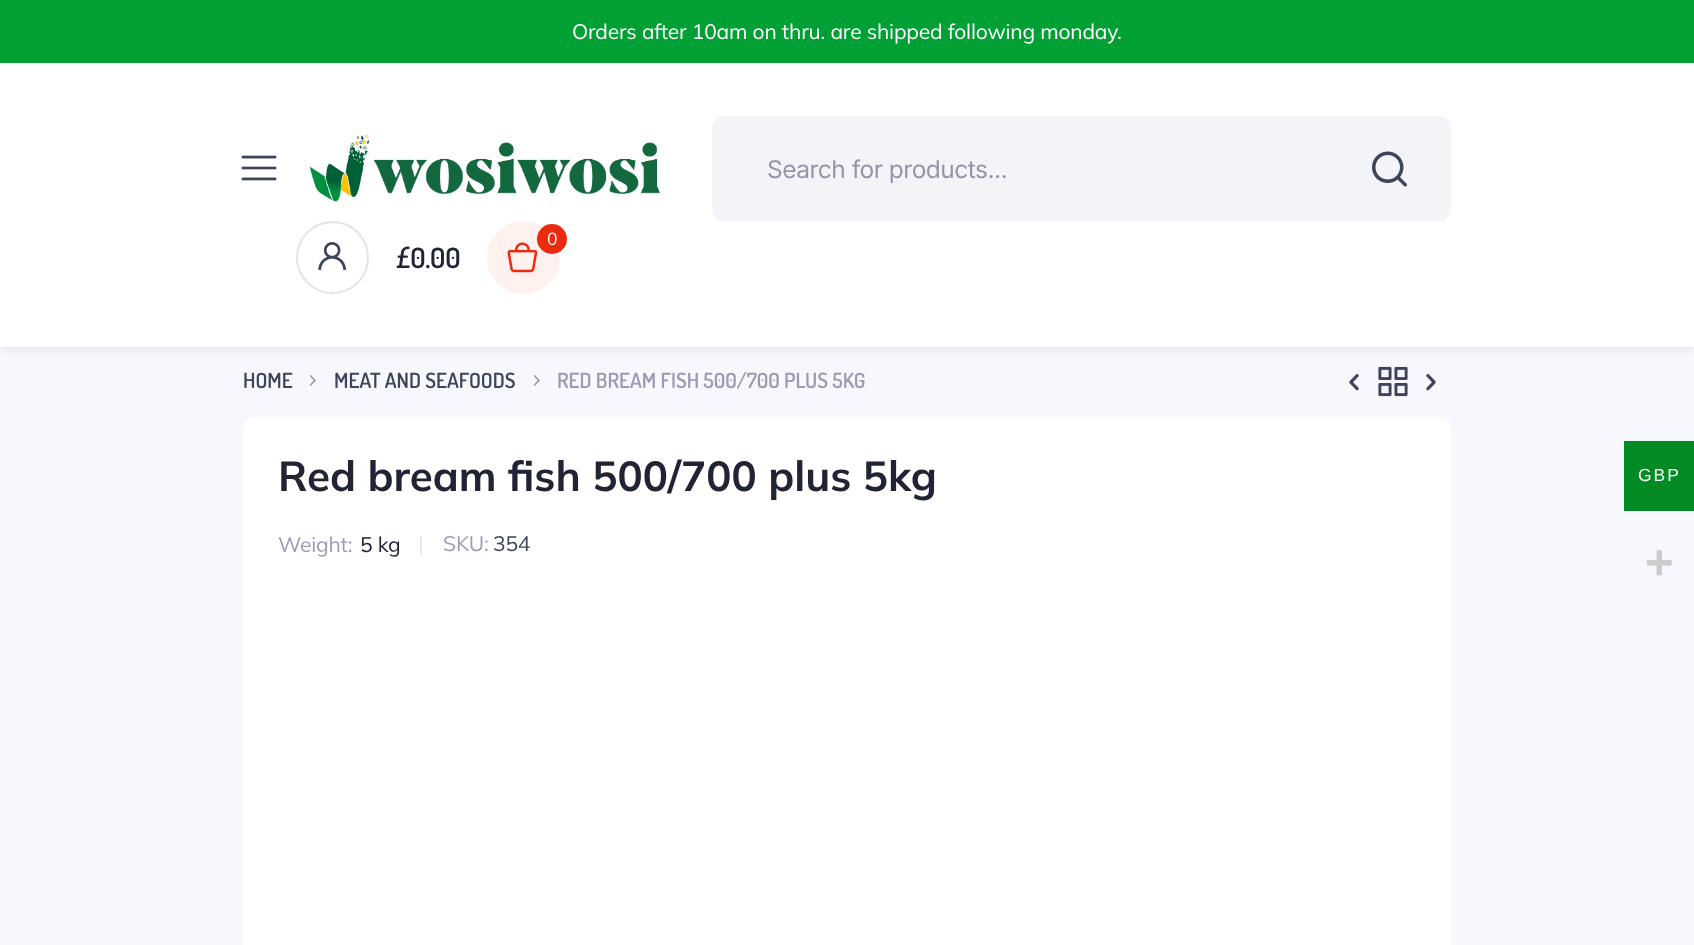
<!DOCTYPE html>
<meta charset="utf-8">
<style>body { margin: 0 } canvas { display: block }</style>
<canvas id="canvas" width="1694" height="945"></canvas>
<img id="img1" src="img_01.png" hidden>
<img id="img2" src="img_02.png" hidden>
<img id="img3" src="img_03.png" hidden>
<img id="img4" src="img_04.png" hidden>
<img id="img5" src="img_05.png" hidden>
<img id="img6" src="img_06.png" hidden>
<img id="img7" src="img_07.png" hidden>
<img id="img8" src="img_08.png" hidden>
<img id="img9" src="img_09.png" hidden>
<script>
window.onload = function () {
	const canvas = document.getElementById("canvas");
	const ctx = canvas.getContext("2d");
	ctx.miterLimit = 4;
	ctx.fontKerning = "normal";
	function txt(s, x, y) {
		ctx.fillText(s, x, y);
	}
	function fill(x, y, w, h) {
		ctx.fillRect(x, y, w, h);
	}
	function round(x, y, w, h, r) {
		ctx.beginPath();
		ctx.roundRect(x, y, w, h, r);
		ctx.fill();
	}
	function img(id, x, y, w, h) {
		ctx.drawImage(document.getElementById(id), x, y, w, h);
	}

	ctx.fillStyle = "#F7F8FD";
	fill(0, 0, 1694, 945);
	ctx.fillStyle = "#00A034";
	fill(0, 0, 1694, 63);
	ctx.fillStyle = "rgba(0, 0, 0, 0.07)";
	ctx.filter = "blur(4.5px)";
	ctx.beginPath();
	ctx.rect(0, 67, 1694, 283);
	ctx.fill();
	ctx.filter = "none";
	ctx.fillStyle = "#FFFFFF";
	fill(0, 63, 1694, 284);
	img("img1", 241, 155, 36, 26);
	img("img2", 309, 134, 351, 68);
	ctx.fillStyle = "#F3F4F7";
	round(712, 116, 739, 105, 12);
	img("img3", 1372, 151, 35, 36);
	ctx.beginPath();
	ctx.arc(332.5, 257.5, 35.5, 0, Math.PI * 2);
	ctx.strokeStyle = "#E2E4EC";
	ctx.lineWidth = 2;
	ctx.stroke();
	img("img4", 318, 242, 29, 29);
	ctx.fillStyle = "#FFF1EE";
	ctx.beginPath();
	ctx.arc(523.5, 257.5, 35.5, 0, Math.PI * 2);
	ctx.fill();
	ctx.strokeStyle = "#FFF1EE";
	ctx.stroke();
	img("img5", 507, 242, 31, 31);
	ctx.fillStyle = "#EA2B0F";
	ctx.beginPath();
	ctx.arc(552, 239, 15, 0, Math.PI * 2);
	ctx.fill();
	img("img6", 309, 375, 7, 11);
	img("img6", 533, 375, 7, 11);
	img("img7", 1349, 374, 10, 17);
	img("img8", 1378, 366, 30, 31);
	img("img9", 1426, 374, 10, 17);
	ctx.fillStyle = "#FFFFFF";
	round(243, 417, 1208, 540, 12);
	ctx.fillStyle = "#028B25";
	fill(1624, 441, 70, 70);
	ctx.letterSpacing = "-0.18px";
	ctx.font = "21px Mulish";
	ctx.fillStyle = "#FFFFFF";
	txt("Orders after 10am on thru. are shipped following monday.", 572, 39);
	ctx.letterSpacing = "-0.5px";
	ctx.font = "24.5px Inter";
	ctx.fillStyle = "#9595A9";
	txt("Search for products...", 767, 178);
	ctx.letterSpacing = "-0.18px";
	ctx.font = "17.5px Mulish";
	ctx.fillStyle = "#FFFFFF";
	txt("0", 547, 245);
	ctx.font = "600 28px Dosis";
	ctx.fillStyle = "#202435";
	txt("£0.00", 396, 268);
	ctx.letterSpacing = "0px";
	ctx.font = "600 21px Dosis";
	ctx.fillStyle = "#3E445A";
	txt("HOME", 243, 388);
	txt("MEAT AND SEAFOODS", 334, 388);
	ctx.fillStyle = "#9B9BB4";
	txt("RED BREAM FISH 500/700 PLUS 5KG", 557, 388);
	ctx.font = "bold 42px Mulish";
	ctx.fillStyle = "#202435";
	txt("Red bream fish 500/700 plus 5kg", 278, 491);
	ctx.letterSpacing = "-0.18px";
	ctx.font = "21px Mulish";
	ctx.fillStyle = "#9B9BB4";
	txt("Weight:", 278, 552);
	ctx.fillStyle = "#202435";
	txt("5 kg", 360, 552);
	ctx.fillStyle = "#E4E5EE";
	txt("|", 418, 551);
	ctx.fillStyle = "#9B9BB4";
	txt("SKU:", 443, 551);
	ctx.fillStyle = "#3E445A";
	txt("354", 493, 551);
	ctx.letterSpacing = "2px";
	ctx.font = "17.5px Liberation Sans";
	ctx.fillStyle = "#FFFFFF";
	txt("GBP", 1638, 481);
	ctx.letterSpacing = "-0.18px";
	ctx.font = "bold 49px Liberation Sans";
	ctx.fillStyle = "#CCCCCC";
	txt("+", 1645, 579);
};
</script>
